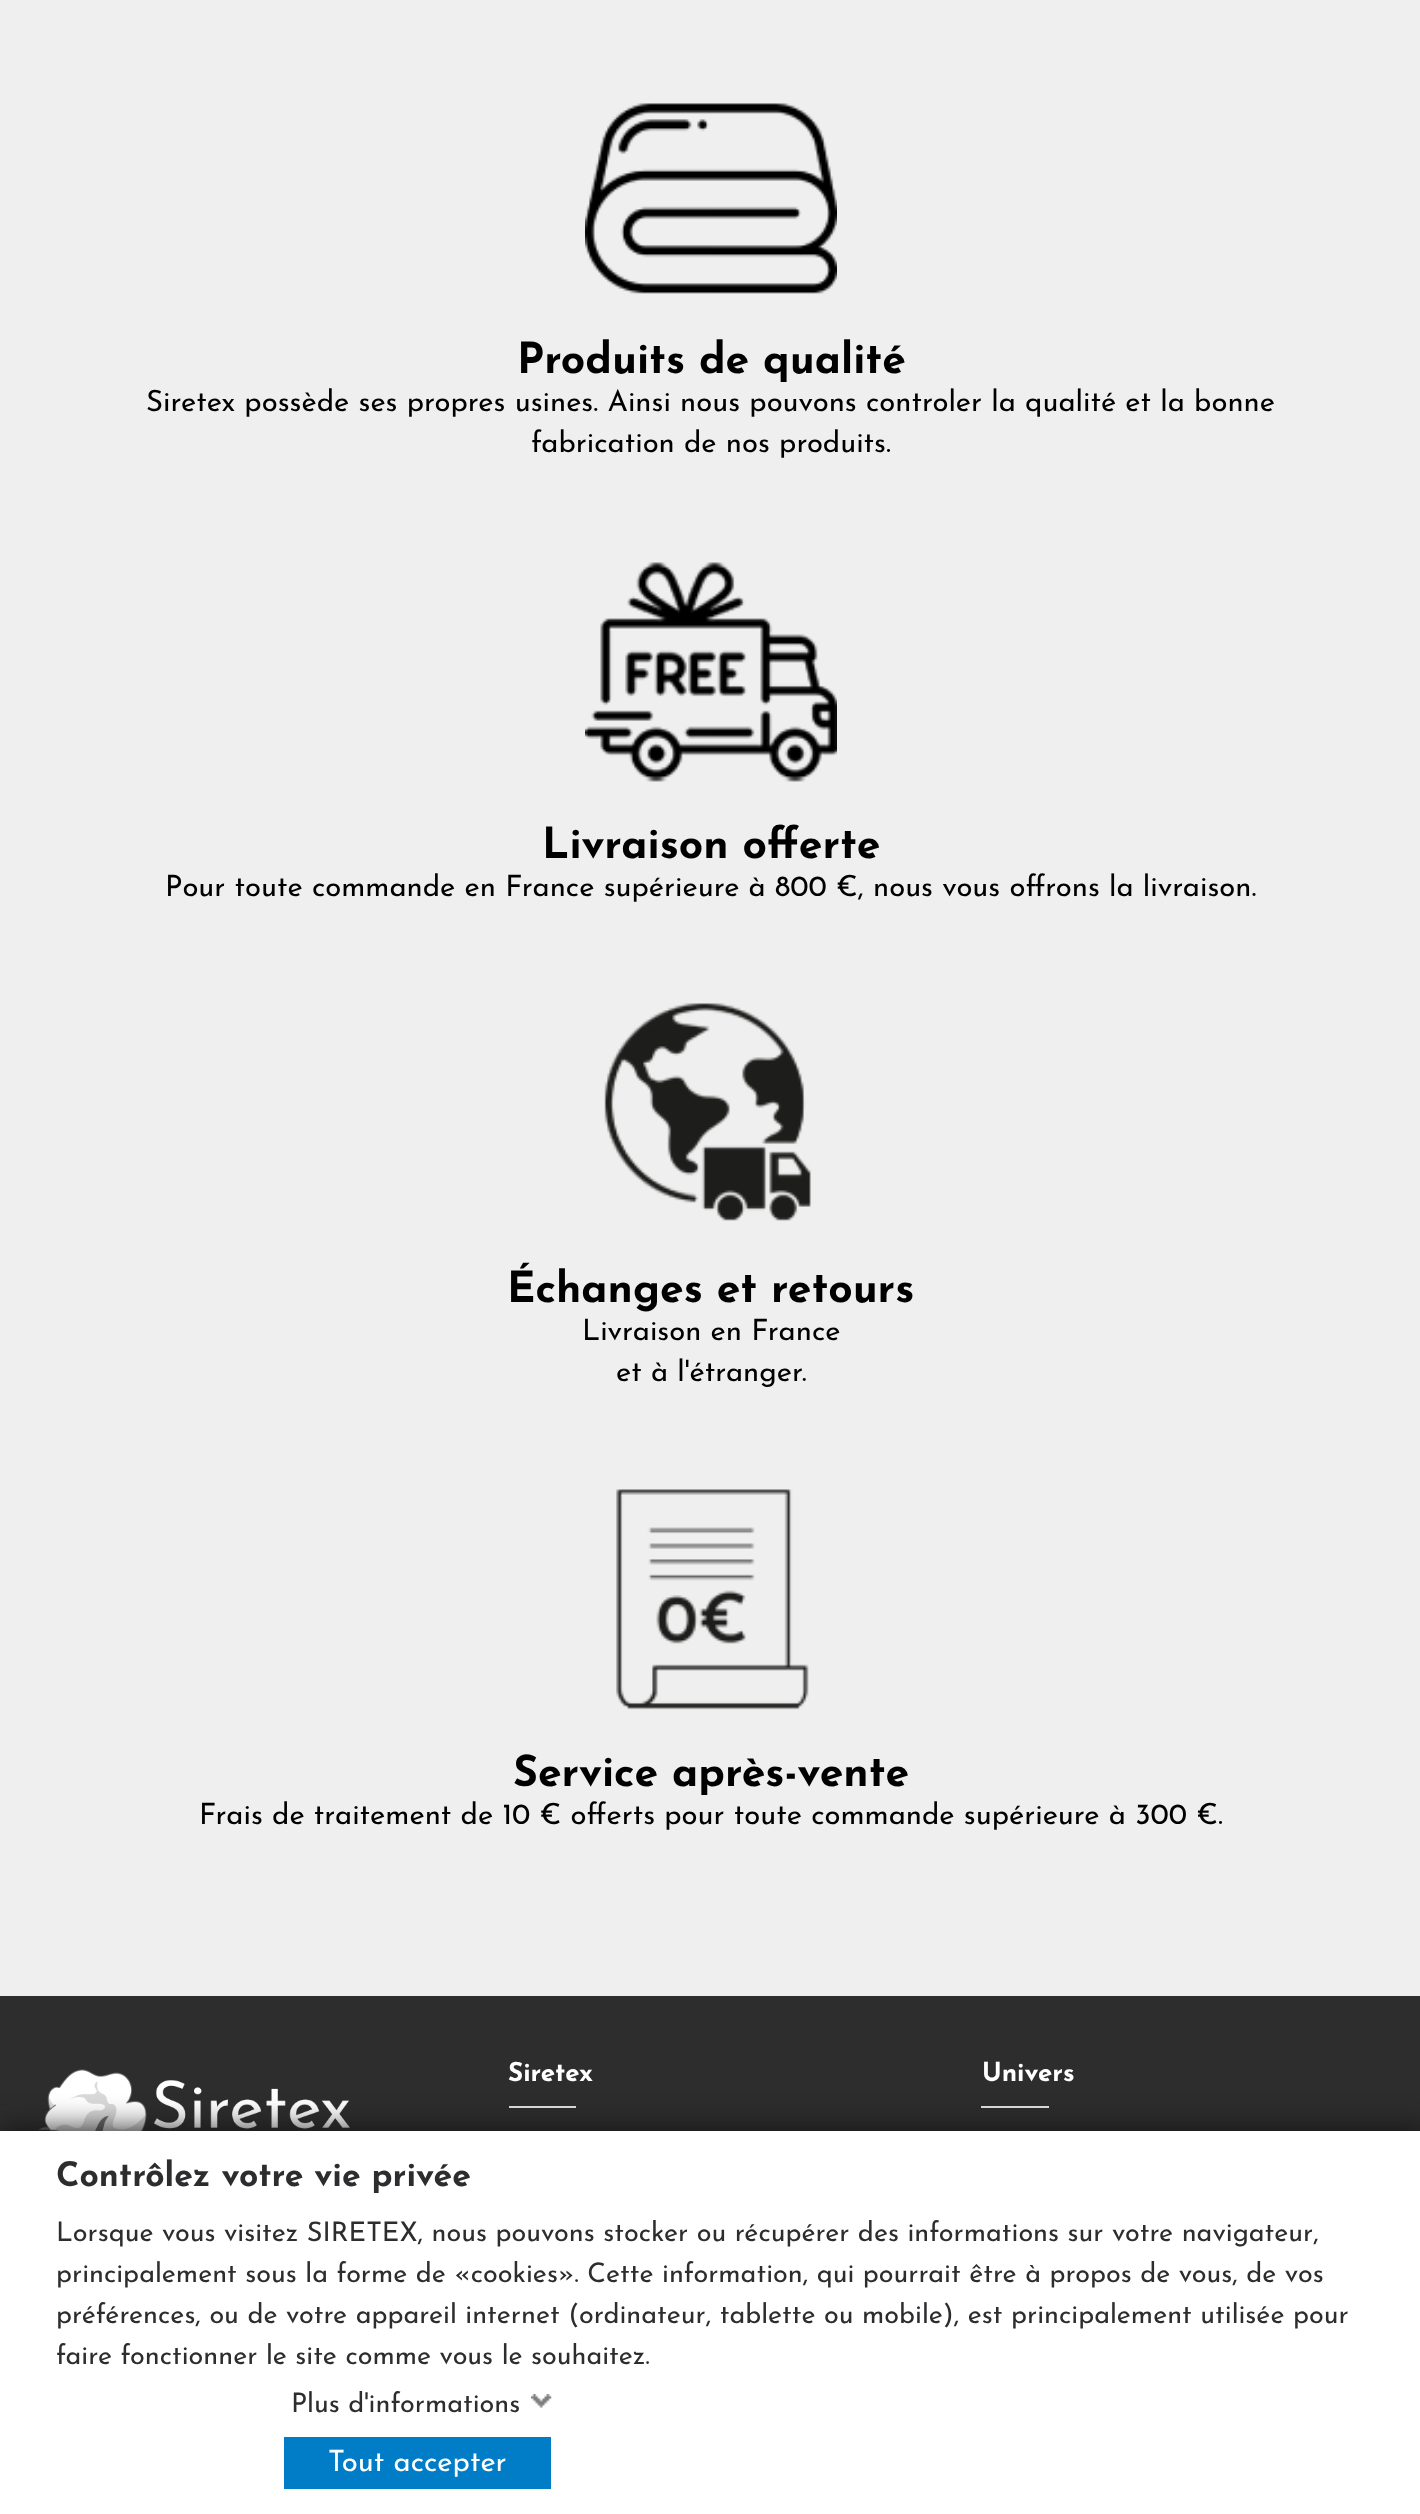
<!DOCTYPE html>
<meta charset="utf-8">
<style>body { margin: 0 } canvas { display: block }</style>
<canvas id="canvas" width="1420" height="2514"></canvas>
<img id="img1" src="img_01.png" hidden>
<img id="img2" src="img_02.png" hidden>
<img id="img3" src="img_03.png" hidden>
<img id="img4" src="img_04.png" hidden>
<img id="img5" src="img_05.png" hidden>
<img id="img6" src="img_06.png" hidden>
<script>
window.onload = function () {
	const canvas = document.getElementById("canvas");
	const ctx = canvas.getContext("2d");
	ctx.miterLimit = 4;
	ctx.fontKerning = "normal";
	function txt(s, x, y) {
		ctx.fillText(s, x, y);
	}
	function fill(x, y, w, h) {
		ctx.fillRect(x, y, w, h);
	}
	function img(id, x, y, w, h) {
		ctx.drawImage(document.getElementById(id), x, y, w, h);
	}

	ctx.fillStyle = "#2D2D2E";
	fill(0, 0, 1420, 2514);
	ctx.fillStyle = "#EFEFEF";
	fill(0, 0, 1420, 1996);
	img("img1", 585, 103, 252, 191);
	img("img2", 585, 562, 252, 220);
	img("img3", 604, 1003, 207, 218);
	img("img4", 616, 1489, 193, 221);
	img("img5", 38, 2069, 312, 62);
	ctx.fillStyle = "#E3E3E3";
	fill(509, 2106, 67, 2);
	fill(981, 2106, 68, 2);
	ctx.fillStyle = "#121212";
	ctx.filter = "blur(16px)";
	ctx.beginPath();
	ctx.rect(0, 2131, 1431, 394);
	ctx.fill();
	ctx.filter = "none";
	ctx.fillStyle = "#FFFFFF";
	fill(0, 2131, 1420, 383);
	img("img6", 531, 2394, 21, 14);
	ctx.fillStyle = "#007DC6";
	fill(284, 2437, 267, 52);
	ctx.font = "bold 42.75px Josefin Sans";
	ctx.fillStyle = "#000000";
	txt("Produits de qualité", 517, 373);
	ctx.font = "29.25px Josefin Sans";
	txt("Siretex possède ses propres usines. Ainsi nous pouvons controler la qualité et la bonne", 146, 411);
	txt("fabrication de nos produits.", 531, 452);
	ctx.font = "bold 42.75px Josefin Sans";
	txt("Livraison offerte", 542, 858);
	ctx.font = "29.25px Josefin Sans";
	txt("Pour toute commande en France supérieure à 800 €, nous vous offrons la livraison.", 165, 896);
	ctx.font = "bold 42.75px Josefin Sans";
	txt("Échanges et retours", 507, 1302);
	ctx.font = "29.25px Josefin Sans";
	txt("Livraison en France", 582, 1340);
	txt("et à l'étranger.", 616, 1381);
	ctx.font = "bold 42.75px Josefin Sans";
	txt("Service après-vente", 513, 1786);
	ctx.font = "29.25px Josefin Sans";
	txt("Frais de traitement de 10 € offerts pour toute commande supérieure à 300 €.", 199, 1824);
	ctx.font = "bold 26px Josefin Sans";
	ctx.fillStyle = "#FFFFFF";
	txt("Siretex", 508, 2081);
	txt("Univers", 982, 2081);
	ctx.font = "bold 33.75px Josefin Sans";
	ctx.fillStyle = "#2D2D2F";
	txt("Contrôlez votre vie privée", 56, 2186);
	ctx.font = "27px Josefin Sans";
	txt("Lorsque vous visitez SIRETEX, nous pouvons stocker ou récupérer des informations sur votre navigateur,", 56, 2241);
	txt("principalement sous la forme de «cookies». Cette information, qui pourrait être à propos de vous, de vos", 56, 2282);
	txt("préférences, ou de votre appareil internet (ordinateur, tablette ou mobile), est principalement utilisée pour", 56, 2323);
	txt("faire fonctionner le site comme vous le souhaitez.", 56, 2364);
	txt("Plus d'informations", 291, 2412);
	ctx.font = "29.25px Josefin Sans";
	ctx.fillStyle = "#FFFFFF";
	txt("Tout accepter", 328, 2471);
};
</script>
